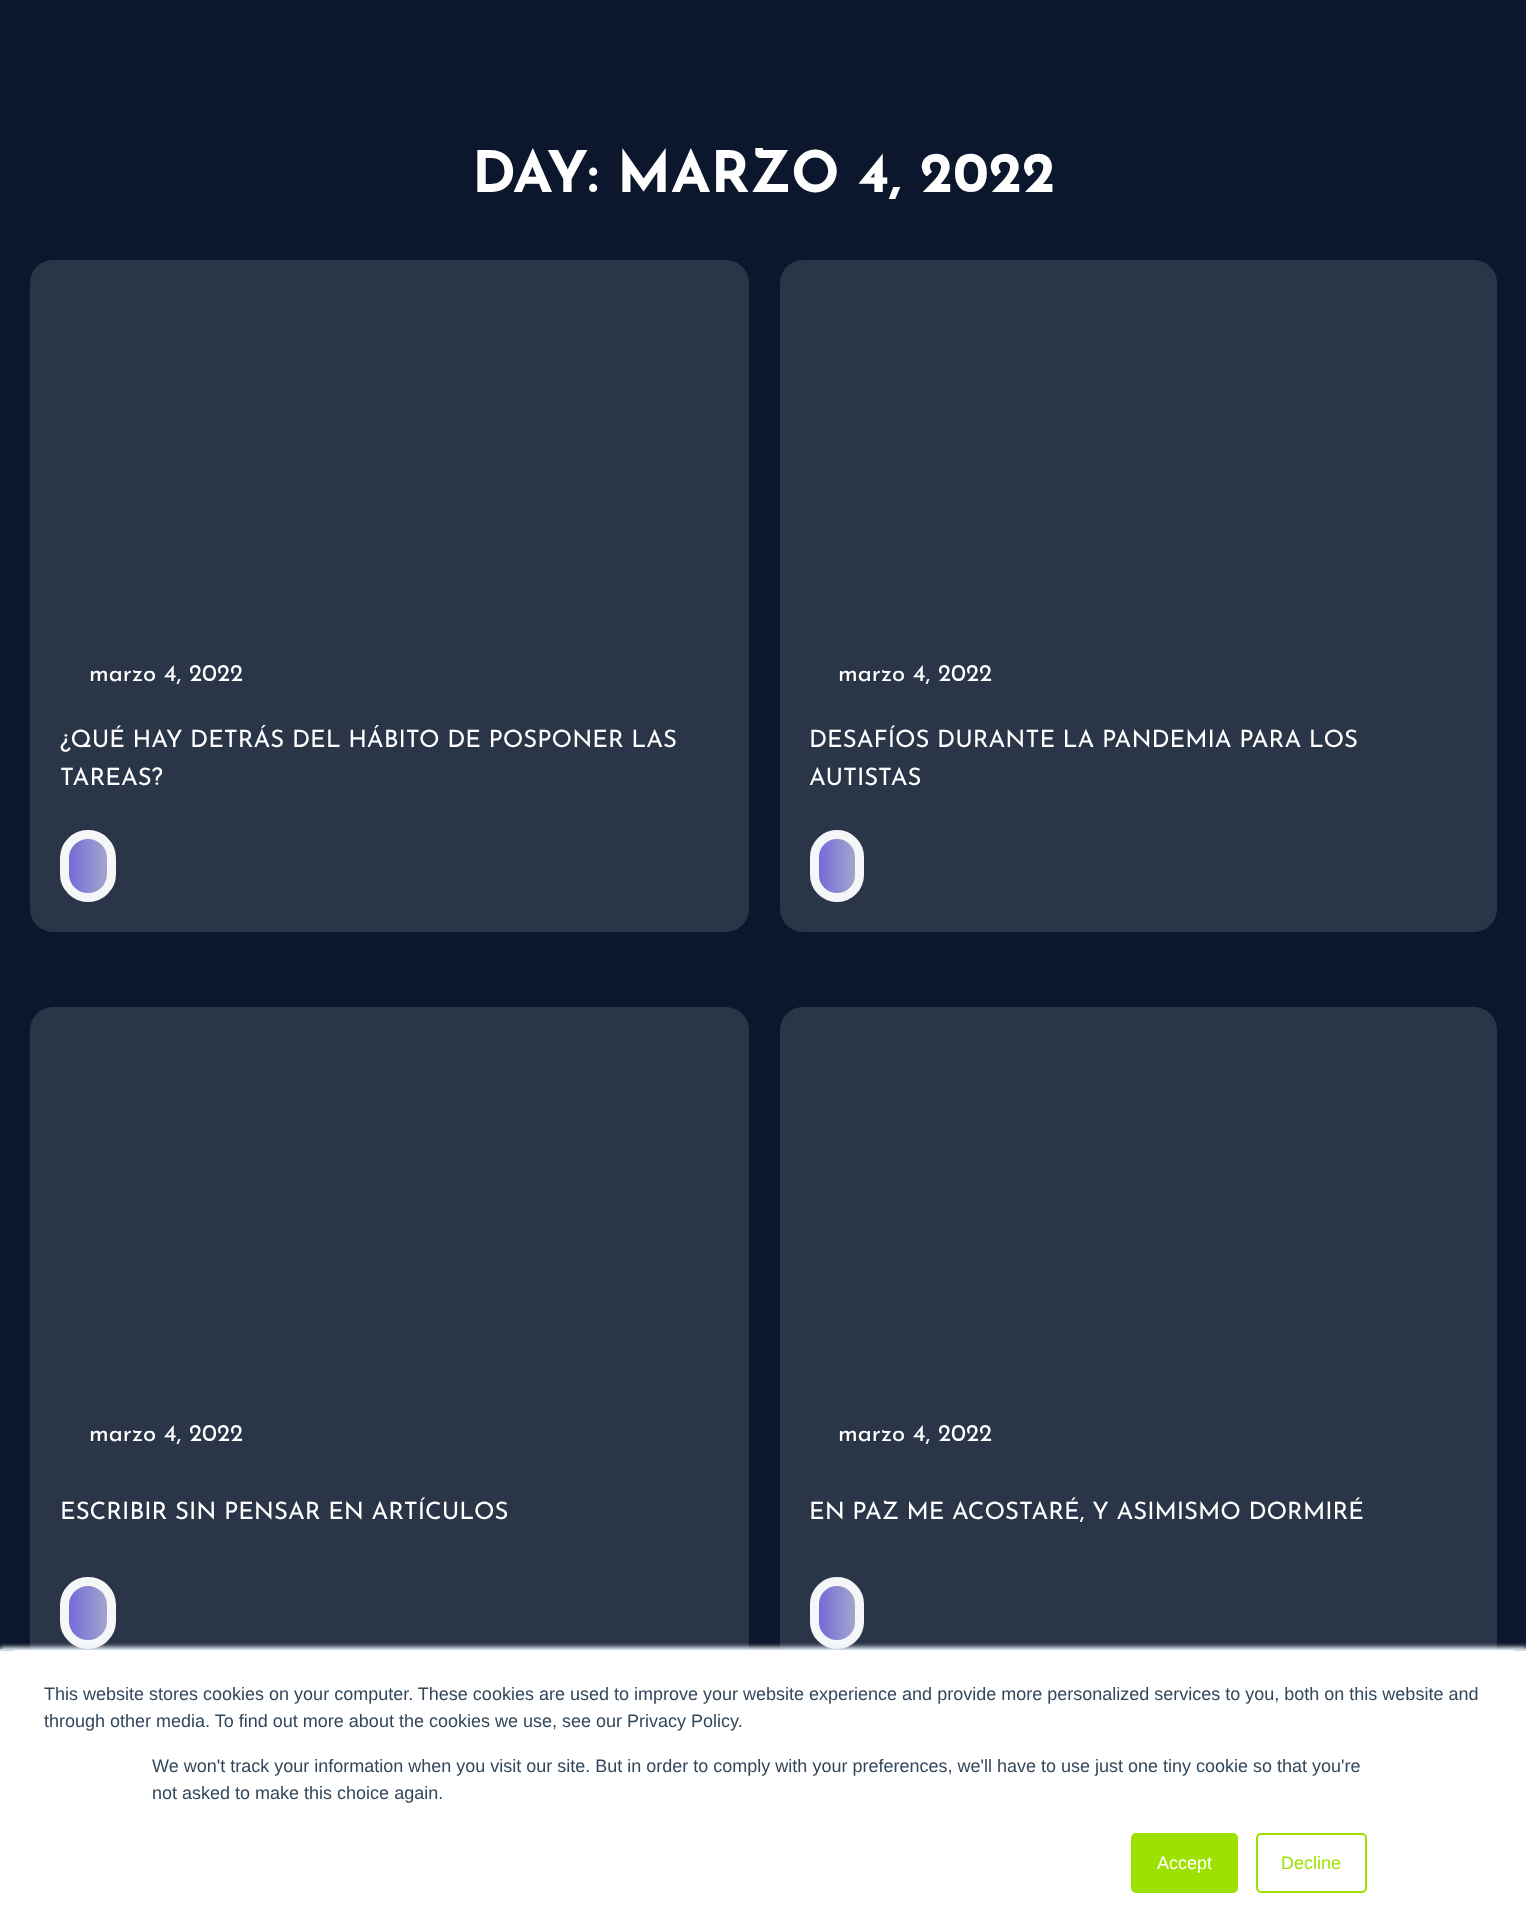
<!DOCTYPE html>
<meta charset="utf-8">
<style>body { margin: 0 } canvas { display: block }</style>
<canvas id="canvas" width="1526" height="1932"></canvas>
<script>
window.onload = function () {
	const canvas = document.getElementById("canvas");
	const ctx = canvas.getContext("2d");
	ctx.miterLimit = 4;
	ctx.fontKerning = "normal";
	function txt(s, x, y) {
		ctx.fillText(s, x, y);
	}
	function fill(x, y, w, h) {
		ctx.fillRect(x, y, w, h);
	}
	function round(x, y, w, h, r) {
		ctx.beginPath();
		ctx.roundRect(x, y, w, h, r);
		ctx.fill();
	}
	let gradient;

	ctx.fillStyle = "#0C172D";
	fill(0, 0, 1526, 1932);
	ctx.fillStyle = "#2B3548";
	round(30, 260, 719, 672, 23);
	ctx.save();
	ctx.beginPath();
	ctx.roundRect(60, 830, 56, 72, 28);
	ctx.clip();
	gradient = ctx.createLinearGradient(69, 866, 107, 866);
	gradient.addColorStop(0, "#746BD8");
	gradient.addColorStop(1, "#A2A6CC");
	ctx.fillStyle = gradient;
	fill(69, 830, 38, 72);
	ctx.restore();
	ctx.beginPath();
	ctx.roundRect(64.5, 834.5, 47, 63, 23.5);
	ctx.strokeStyle = "#F5F6F8";
	ctx.lineWidth = 9;
	ctx.stroke();
	round(780, 260, 717, 672, 23);
	ctx.save();
	ctx.beginPath();
	ctx.roundRect(810, 830, 54, 72, 27);
	ctx.clip();
	gradient = ctx.createLinearGradient(819, 866, 855, 866);
	gradient.addColorStop(0, "#746BD8");
	gradient.addColorStop(1, "#A2A6CC");
	ctx.fillStyle = gradient;
	fill(819, 830, 36, 72);
	ctx.restore();
	ctx.beginPath();
	ctx.roundRect(814.5, 834.5, 45, 63, 22.5);
	ctx.stroke();
	round(30, 1007, 719, 672, 23);
	ctx.save();
	ctx.beginPath();
	ctx.roundRect(60, 1577, 56, 72, 28);
	ctx.clip();
	gradient = ctx.createLinearGradient(69, 1613, 107, 1613);
	gradient.addColorStop(0, "#746BD8");
	gradient.addColorStop(1, "#A2A6CC");
	ctx.fillStyle = gradient;
	fill(69, 1577, 38, 72);
	ctx.restore();
	ctx.beginPath();
	ctx.roundRect(64.5, 1581.5, 47, 63, 23.5);
	ctx.stroke();
	round(780, 1007, 717, 672, 23);
	ctx.save();
	ctx.beginPath();
	ctx.roundRect(810, 1577, 54, 72, 27);
	ctx.clip();
	gradient = ctx.createLinearGradient(819, 1613, 855, 1613);
	gradient.addColorStop(0, "#746BD8");
	gradient.addColorStop(1, "#A2A6CC");
	ctx.fillStyle = gradient;
	fill(819, 1577, 36, 72);
	ctx.restore();
	ctx.beginPath();
	ctx.roundRect(814.5, 1581.5, 45, 63, 22.5);
	ctx.stroke();
	ctx.fillStyle = "#EAF0F6";
	ctx.filter = "blur(2px)";
	ctx.beginPath();
	ctx.rect(0, 1647, 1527, 284);
	ctx.fill();
	ctx.filter = "none";
	ctx.fillStyle = "#FFFFFF";
	fill(0, 1651, 1526, 281);
	ctx.fillStyle = "#CBD6E2";
	fill(0, 1649, 1526, 2);
	ctx.fillStyle = "#FFFFFF";
	fill(14, 1650, 1500, 1);
	ctx.fillStyle = "#9EE101";
	ctx.beginPath();
	ctx.roundRect(1132, 1834, 105, 58, 4);
	ctx.fill();
	ctx.strokeStyle = "#9EE101";
	ctx.lineWidth = 2;
	ctx.stroke();
	ctx.beginPath();
	ctx.roundRect(1257, 1834, 109, 58, 4);
	ctx.stroke();
	ctx.font = "bold 57px Josefin Sans";
	ctx.fillStyle = "#FFFFFF";
	txt("DAY: MARZO 4, 2022", 472, 192);
	ctx.font = "24px Josefin Sans";
	txt("marzo 4, 2022", 89, 681);
	txt("¿QUÉ HAY DETRÁS DEL HÁBITO DE POSPONER LAS", 60, 747);
	txt("TAREAS?", 60, 785);
	ctx.font = "24px Liberation Sans";
	txt("￼", 163, 785);
	ctx.font = "24px Josefin Sans";
	txt("marzo 4, 2022", 838, 681);
	txt("DESAFÍOS DURANTE LA PANDEMIA PARA LOS", 809, 747);
	txt("AUTISTAS", 809, 785);
	txt("marzo 4, 2022", 89, 1441);
	txt("ESCRIBIR SIN PENSAR EN ARTÍCULOS", 60, 1519);
	txt("marzo 4, 2022", 838, 1441);
	txt("EN PAZ ME ACOSTARÉ, Y ASIMISMO DORMIRÉ", 809, 1519);
	ctx.font = "18px Liberation Sans";
	ctx.fillStyle = "#33475B";
	txt("This website stores cookies on your computer. These cookies are used to improve your website experience and provide more personalized services to you, both on this website and", 44, 1700);
	txt("through other media. To find out more about the cookies we use, see our Privacy Policy.", 44, 1727);
	txt("We won't track your information when you visit our site. But in order to comply with your preferences, we'll have to use just one tiny cookie so that you're", 152, 1772);
	txt("not asked to make this choice again.", 152, 1799);
	ctx.fillStyle = "#FFFFFF";
	txt("Accept", 1157, 1869);
	ctx.fillStyle = "#9EE101";
	txt("Decline", 1281, 1869);
};
</script>
